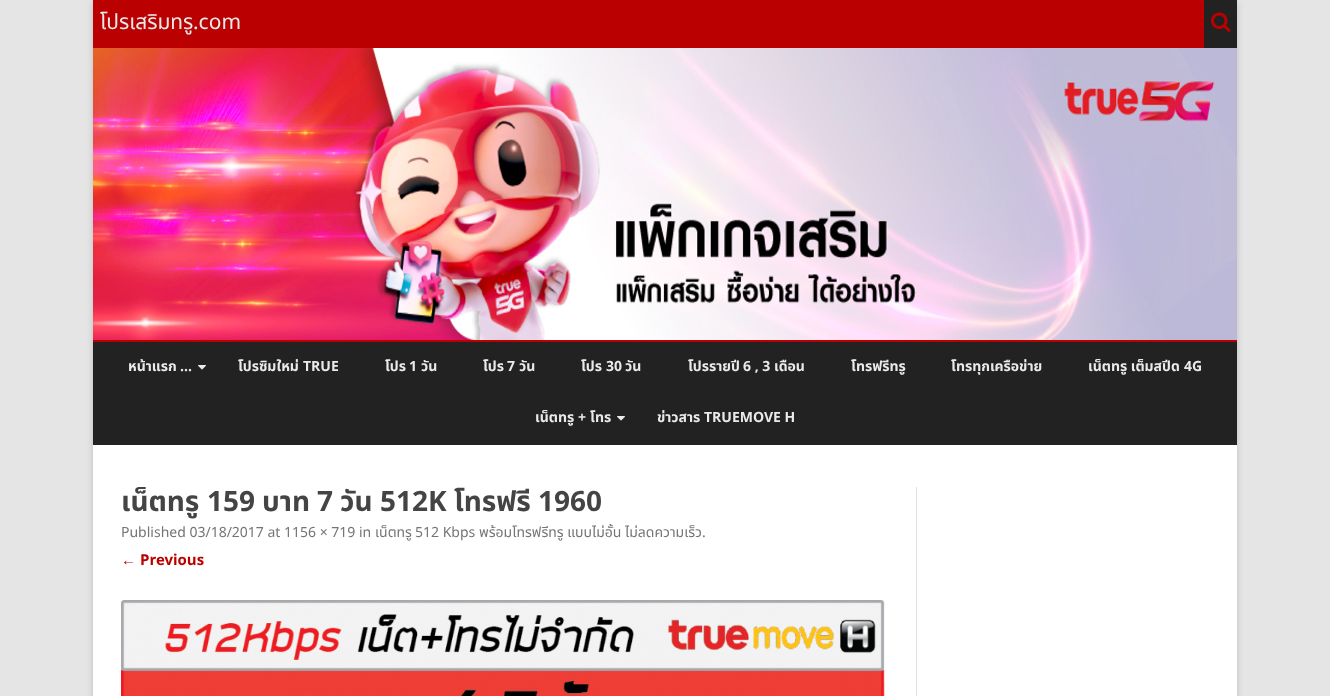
<!DOCTYPE html>
<meta charset="utf-8">
<style>body { margin: 0 } canvas { display: block }</style>
<canvas id="canvas" width="1330" height="696"></canvas>
<img id="img1" src="img_01.png" hidden>
<img id="img2" src="img_02.png" hidden>
<img id="img3" src="img_03.png" hidden>
<img id="img4" src="img_04.png" hidden>
<script>
window.onload = function () {
	const canvas = document.getElementById("canvas");
	const ctx = canvas.getContext("2d");
	ctx.miterLimit = 4;
	ctx.fontKerning = "normal";
	function txt(s, x, y) {
		ctx.fillText(s, x, y);
	}
	function fill(x, y, w, h) {
		ctx.fillRect(x, y, w, h);
	}
	function img(id, x, y, w, h) {
		ctx.drawImage(document.getElementById(id), x, y, w, h);
	}

	ctx.fillStyle = "#E5E5E5";
	fill(0, 0, 1330, 696);
	ctx.fillStyle = "rgba(100, 100, 100, 0.3)";
	ctx.filter = "blur(3px)";
	ctx.beginPath();
	ctx.rect(93, 2, 1144, 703);
	ctx.fill();
	ctx.filter = "none";
	ctx.fillStyle = "#FFFFFF";
	fill(93, 445, 1144, 251);
	ctx.fillStyle = "#BA0000";
	fill(93, 0, 1111, 48);
	ctx.fillStyle = "#222222";
	fill(1204, 0, 33, 48);
	img("img1", 1211, 12, 20, 20);
	img("img2", 93, 48, 1144, 292);
	ctx.fillStyle = "#BA0000";
	fill(93, 340, 1144, 2);
	ctx.fillStyle = "#222222";
	fill(93, 342, 1144, 103);
	img("img3", 198, 365, 8, 5);
	img("img3", 617, 416, 8, 5);
	ctx.fillStyle = "#E0E0E0";
	fill(916, 487, 1, 209);
	img("img4", 121, 600, 764, 96);
	ctx.font = "21px Noto Sans Thai";
	ctx.fillStyle = "#EAEAEA";
	txt("โปรเสริมทรู", 100, 29);
	ctx.font = "21px Noto Sans";
	txt(".com", 193, 29);
	ctx.font = "bold 14px Noto Sans Thai";
	txt("หน้าแรก", 128, 371);
	ctx.font = "bold 14px Noto Sans";
	txt("…", 180, 371);
	ctx.font = "bold 14px Noto Sans Thai";
	txt("โปรซิมใหม่", 238, 371);
	ctx.font = "bold 14px Noto Sans";
	txt("TRUE", 303, 371);
	ctx.font = "bold 14px Noto Sans Thai";
	txt("โปร", 385, 371);
	ctx.font = "bold 14px Noto Sans";
	txt("1", 409, 371);
	ctx.font = "bold 14px Noto Sans Thai";
	txt("วัน", 421, 371);
	txt("โปร", 483, 371);
	ctx.font = "bold 14px Noto Sans";
	txt("7", 507, 371);
	ctx.font = "bold 14px Noto Sans Thai";
	txt("วัน", 519, 371);
	txt("โปร", 581, 371);
	ctx.font = "bold 14px Noto Sans";
	txt("30", 606, 371);
	ctx.font = "bold 14px Noto Sans Thai";
	txt("วัน", 625, 371);
	txt("โปรรายปี", 688, 371);
	ctx.font = "bold 14px Noto Sans";
	txt("6 , 3", 743, 371);
	ctx.font = "bold 14px Noto Sans Thai";
	txt("เดือน", 774, 371);
	txt("โทรฟรีทรู", 851, 371);
	txt("โทรทุกเครือข่าย", 951, 371);
	txt("เน็ตทรู เต็มสปีด", 1088, 371);
	ctx.font = "bold 14px Noto Sans";
	txt("4G", 1184, 371);
	ctx.font = "bold 14px Noto Sans Thai";
	txt("เน็ตทรู", 535, 422);
	ctx.font = "bold 14px Noto Sans";
	txt("+", 578, 422);
	ctx.font = "bold 14px Noto Sans Thai";
	txt("โทร", 590, 422);
	txt("ข่าวสาร", 657, 422);
	ctx.font = "bold 14px Noto Sans";
	txt("TRUEMOVE H", 704, 422);
	ctx.font = "bold 28px Noto Sans Thai";
	ctx.fillStyle = "#444444";
	txt("เน็ตทรู", 121, 511);
	ctx.font = "bold 28px Noto Sans";
	txt("159", 207, 511);
	ctx.font = "bold 28px Noto Sans Thai";
	txt("บาท", 262, 511);
	ctx.font = "bold 28px Noto Sans";
	txt("7", 317, 511);
	ctx.font = "bold 28px Noto Sans Thai";
	txt("วัน", 340, 511);
	ctx.font = "bold 28px Noto Sans";
	txt("512K", 380, 511);
	ctx.font = "bold 28px Noto Sans Thai";
	txt("โทรฟรี", 454, 511);
	ctx.font = "bold 28px Noto Sans";
	txt("1960", 538, 511);
	ctx.font = "14px Noto Sans";
	ctx.fillStyle = "#757575";
	txt("Published 03/18/2017 at 1156 × 719 in", 121, 537);
	ctx.font = "14px Noto Sans Thai";
	txt("เน็ตทรู", 375, 537);
	ctx.font = "14px Noto Sans";
	txt("512 Kbps", 415, 537);
	ctx.font = "14px Noto Sans Thai";
	txt("พร้อมโทรฟรีทรู แบบไม่อั้น ไม่ลดความเร็ว", 479, 537);
	ctx.font = "14px Noto Sans";
	txt(".", 702, 537);
	ctx.font = "bold 15px Liberation Sans";
	ctx.fillStyle = "#BA0000";
	txt("←", 121, 565);
	ctx.font = "bold 15px Noto Sans";
	txt("Previous", 140, 565);
};
</script>
